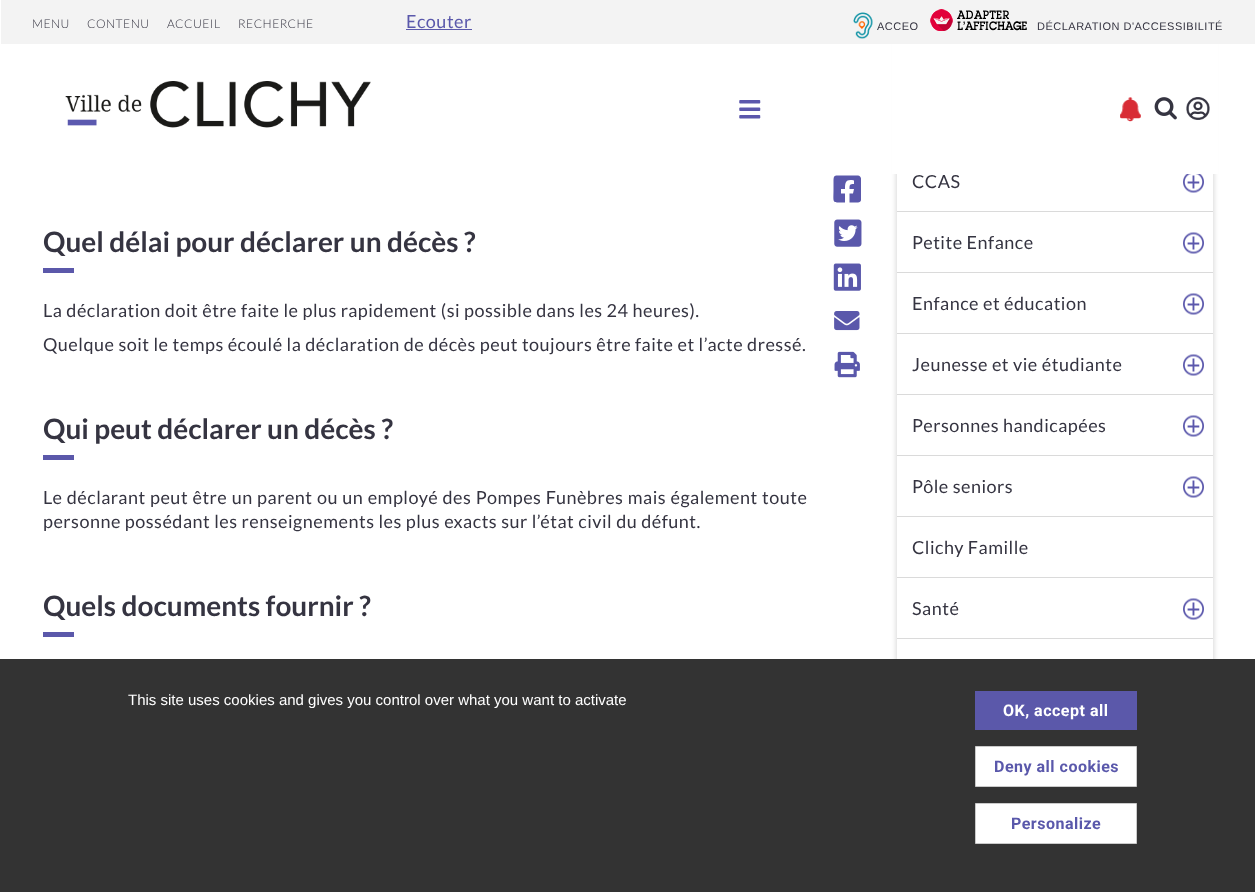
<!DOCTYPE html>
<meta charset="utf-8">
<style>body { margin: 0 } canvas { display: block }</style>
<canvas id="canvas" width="1255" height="892"></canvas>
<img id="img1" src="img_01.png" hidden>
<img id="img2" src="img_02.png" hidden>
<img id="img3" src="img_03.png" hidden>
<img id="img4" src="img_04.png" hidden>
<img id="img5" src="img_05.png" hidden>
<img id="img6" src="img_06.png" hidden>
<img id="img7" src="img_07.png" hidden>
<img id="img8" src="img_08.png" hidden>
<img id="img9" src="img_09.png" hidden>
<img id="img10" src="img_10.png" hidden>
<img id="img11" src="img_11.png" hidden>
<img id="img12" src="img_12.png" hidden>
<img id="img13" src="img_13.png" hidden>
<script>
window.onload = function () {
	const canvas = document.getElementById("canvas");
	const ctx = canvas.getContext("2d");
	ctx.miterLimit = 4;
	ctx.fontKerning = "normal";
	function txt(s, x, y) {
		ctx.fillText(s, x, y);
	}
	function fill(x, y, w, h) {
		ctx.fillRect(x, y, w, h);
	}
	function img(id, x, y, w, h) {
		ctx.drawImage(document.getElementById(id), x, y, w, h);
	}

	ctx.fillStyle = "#FFFFFF";
	fill(0, 0, 1255, 892);
	ctx.save();
	ctx.beginPath();
	ctx.moveTo(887, 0);
	ctx.lineTo(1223, 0);
	ctx.lineTo(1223, 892);
	ctx.lineTo(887, 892);
	ctx.closePath();
	ctx.moveTo(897, -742);
	ctx.lineTo(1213, -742);
	ctx.lineTo(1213, 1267);
	ctx.lineTo(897, 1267);
	ctx.closePath();
	ctx.clip("evenodd");
	ctx.fillStyle = "rgba(0, 0, 0, 0.15)";
	ctx.filter = "blur(2.5px)";
	ctx.beginPath();
	ctx.rect(896, -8, 318, 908);
	ctx.fill();
	ctx.filter = "none";
	ctx.restore();
	fill(892, 0, 326, 174);
	ctx.fillStyle = "#F3F3F3";
	fill(1, 0, 1254, 44);
	ctx.fillStyle = "#5A58AB";
	fill(406, 29, 66, 1);
	img("img1", 853, 12, 20, 27);
	img("img2", 930, 9, 97, 22);
	img("img3", 65, 81, 306, 47);
	img("img4", 739, 100, 22, 19);
	img("img5", 1120, 97, 21, 25);
	img("img6", 1154, 97, 23, 23);
	img("img7", 1186, 97, 24, 23);
	ctx.fillStyle = "#5B58AA";
	fill(43, 268, 31, 5);
	fill(43, 455, 31, 5);
	fill(43, 632, 31, 5);
	ctx.fillStyle = "#5A58AB";
	ctx.beginPath();
	ctx.moveTo(858, 175.5);
	ctx.lineTo(840, 175.5);
	ctx.bezierCurveTo(834, 175.5, 833.5, 175.5, 833.5, 182);
	ctx.lineTo(833.5, 189);
	ctx.bezierCurveTo(833.5, 204, 831.5, 202.5, 845, 202.5);
	ctx.lineTo(845, 193.5);
	ctx.lineTo(841, 193.5);
	ctx.lineTo(841, 189);
	ctx.lineTo(845, 189);
	ctx.bezierCurveTo(845, 182, 846, 179, 854, 180.5);
	ctx.lineTo(854, 184);
	ctx.bezierCurveTo(849.5, 184, 849.5, 185, 849.5, 189);
	ctx.lineTo(854, 189);
	ctx.lineTo(853, 193.5);
	ctx.lineTo(849.5, 193.5);
	ctx.lineTo(849.5, 202.5);
	ctx.lineTo(858, 202.5);
	ctx.bezierCurveTo(859.5, 202.5, 861, 201.5, 861, 200);
	ctx.lineTo(861, 178.5);
	ctx.bezierCurveTo(861, 177, 859.5, 175.5, 858, 175.5);
	ctx.closePath();
	ctx.fill();
	img("img8", 834, 219, 28, 28);
	img("img9", 833, 263, 28, 28);
	img("img10", 834, 311, 26, 20);
	img("img11", 834, 351, 26, 27);
	ctx.fillStyle = "#DADADA";
	fill(897, 211, 316, 1);
	img("img12", 1183, 174, 21, 19);
	fill(897, 272, 316, 1);
	img("img13", 1183, 232, 21, 22);
	fill(897, 333, 316, 1);
	img("img13", 1183, 293, 21, 22);
	fill(897, 394, 316, 1);
	img("img13", 1183, 354, 21, 22);
	fill(897, 455, 316, 1);
	img("img13", 1183, 415, 21, 22);
	fill(897, 516, 316, 1);
	img("img13", 1183, 476, 21, 22);
	fill(897, 577, 316, 1);
	fill(897, 638, 316, 1);
	img("img13", 1183, 598, 21, 22);
	ctx.fillStyle = "#333333";
	fill(0, 659, 1255, 233);
	ctx.fillStyle = "#5B58AA";
	fill(975, 691, 162, 39);
	ctx.fillStyle = "#FFFFFF";
	ctx.beginPath();
	ctx.rect(975.5, 746.5, 161, 40);
	ctx.fill();
	ctx.strokeStyle = "#CACACA";
	ctx.stroke();
	ctx.beginPath();
	ctx.rect(975.5, 803.5, 161, 40);
	ctx.fill();
	ctx.stroke();
	ctx.letterSpacing = "0.5px";
	ctx.font = "300 12px Lato";
	ctx.fillStyle = "#353441";
	txt("MENU", 32, 28);
	txt("CONTENU", 87, 28);
	txt("ACCUEIL", 167, 28);
	txt("RECHERCHE", 238, 28);
	ctx.font = "18px Lato";
	ctx.fillStyle = "#5A58AB";
	txt("Ecouter", 406, 28);
	ctx.font = "11px Liberation Sans";
	ctx.fillStyle = "#353441";
	txt("ACCEO", 877, 30);
	txt("DÉCLARATION D'ACCESSIBILITÉ", 1037, 30);
	ctx.letterSpacing = "0px";
	ctx.font = "bold 28px Lato";
	txt("Quel délai pour déclarer un décès ?", 43, 252);
	ctx.letterSpacing = "0.5px";
	ctx.font = "18px Lato";
	txt("La déclaration doit être faite le plus rapidement (si possible dans les 24 heures).", 43, 317);
	txt("Quelque soit le temps écoulé la déclaration de décès peut toujours être faite et l’acte dressé.", 43, 351);
	ctx.letterSpacing = "0px";
	ctx.font = "bold 28px Lato";
	txt("Qui peut déclarer un décès ?", 43, 439);
	ctx.letterSpacing = "0.5px";
	ctx.wordSpacing = "0.4px";
	ctx.font = "18px Lato";
	txt("Le déclarant peut être un parent ou un employé des Pompes Funèbres mais également toute", 43, 504);
	ctx.wordSpacing = "0px";
	txt("personne possédant les renseignements les plus exacts sur l’état civil du défunt.", 43, 528);
	ctx.letterSpacing = "0px";
	ctx.font = "bold 28px Lato";
	txt("Quels documents fournir ?", 43, 616);
	ctx.letterSpacing = "0.5px";
	ctx.font = "18px Lato";
	txt("CCAS", 912, 188);
	txt("Petite Enfance", 912, 249);
	txt("Enfance et éducation", 912, 310);
	txt("Jeunesse et vie étudiante", 912, 371);
	txt("Personnes handicapées", 912, 432);
	txt("Pôle seniors", 912, 493);
	txt("Clichy Famille", 912, 554);
	txt("Santé", 912, 615);
	ctx.letterSpacing = "0px";
	ctx.font = "15px Liberation Sans";
	ctx.fillStyle = "#FFFFFF";
	txt("This site uses cookies and gives you control over what you want to activate", 128, 705);
	ctx.letterSpacing = "0.5px";
	ctx.font = "bold 16px Roboto";
	txt("OK, accept all", 1003, 716);
	ctx.fillStyle = "#5A58AB";
	txt("Deny all cookies", 994, 772);
	txt("Personalize", 1011, 829);
};
</script>
